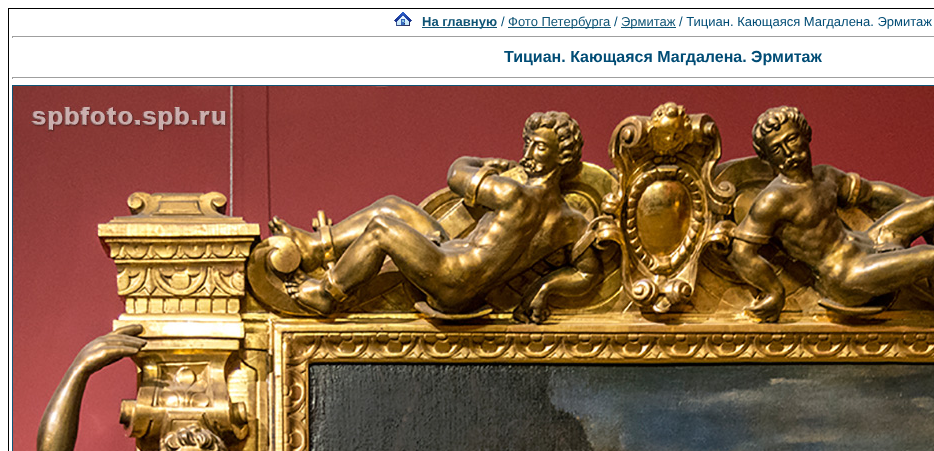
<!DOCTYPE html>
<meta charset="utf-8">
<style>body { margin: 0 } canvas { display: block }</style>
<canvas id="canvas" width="934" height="451"></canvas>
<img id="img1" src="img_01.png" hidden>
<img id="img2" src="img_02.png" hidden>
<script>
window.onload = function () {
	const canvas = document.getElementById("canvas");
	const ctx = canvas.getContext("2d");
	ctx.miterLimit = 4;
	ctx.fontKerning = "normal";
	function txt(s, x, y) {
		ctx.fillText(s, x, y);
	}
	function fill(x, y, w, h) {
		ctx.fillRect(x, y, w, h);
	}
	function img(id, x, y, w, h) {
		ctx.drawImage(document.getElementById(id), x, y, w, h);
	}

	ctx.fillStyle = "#FFFFFF";
	fill(0, 0, 934, 451);
	ctx.fillStyle = "#000000";
	fill(8, 8, 926, 443);
	ctx.fillStyle = "#FFFFFF";
	fill(9, 9, 925, 442);
	img("img1", 394, 12, 18, 14);
	ctx.fillStyle = "#0F5475";
	fill(422, 27, 75, 1);
	fill(508, 27, 103, 1);
	fill(621, 27, 55, 1);
	ctx.fillStyle = "#9F9F9F";
	fill(12, 36, 922, 1);
	fill(12, 36, 1, 2);
	fill(12, 77, 922, 1);
	fill(12, 77, 1, 2);
	ctx.strokeStyle = "#0F5475";
	ctx.strokeRect(12.5, 85.5, 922, 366);
	img("img2", 13, 86, 921, 365);
	ctx.font = "bold 13px Liberation Sans";
	ctx.fillStyle = "#0F5475";
	txt("На главную", 422, 26);
	ctx.font = "13px Liberation Sans";
	ctx.fillStyle = "#004C75";
	txt("/", 501, 26);
	ctx.fillStyle = "#0F5475";
	txt("Фото Петербурга", 508, 26);
	ctx.fillStyle = "#004C75";
	txt("/", 614, 26);
	ctx.fillStyle = "#0F5475";
	txt("Эрмитаж", 621, 26);
	ctx.fillStyle = "#004C75";
	txt("/ Тициан. Кающаяся Магдалена. Эрмитаж", 679, 26);
	ctx.font = "bold 16px Liberation Sans";
	txt("Тициан. Кающаяся Магдалена. Эрмитаж", 504, 62);
};
</script>
